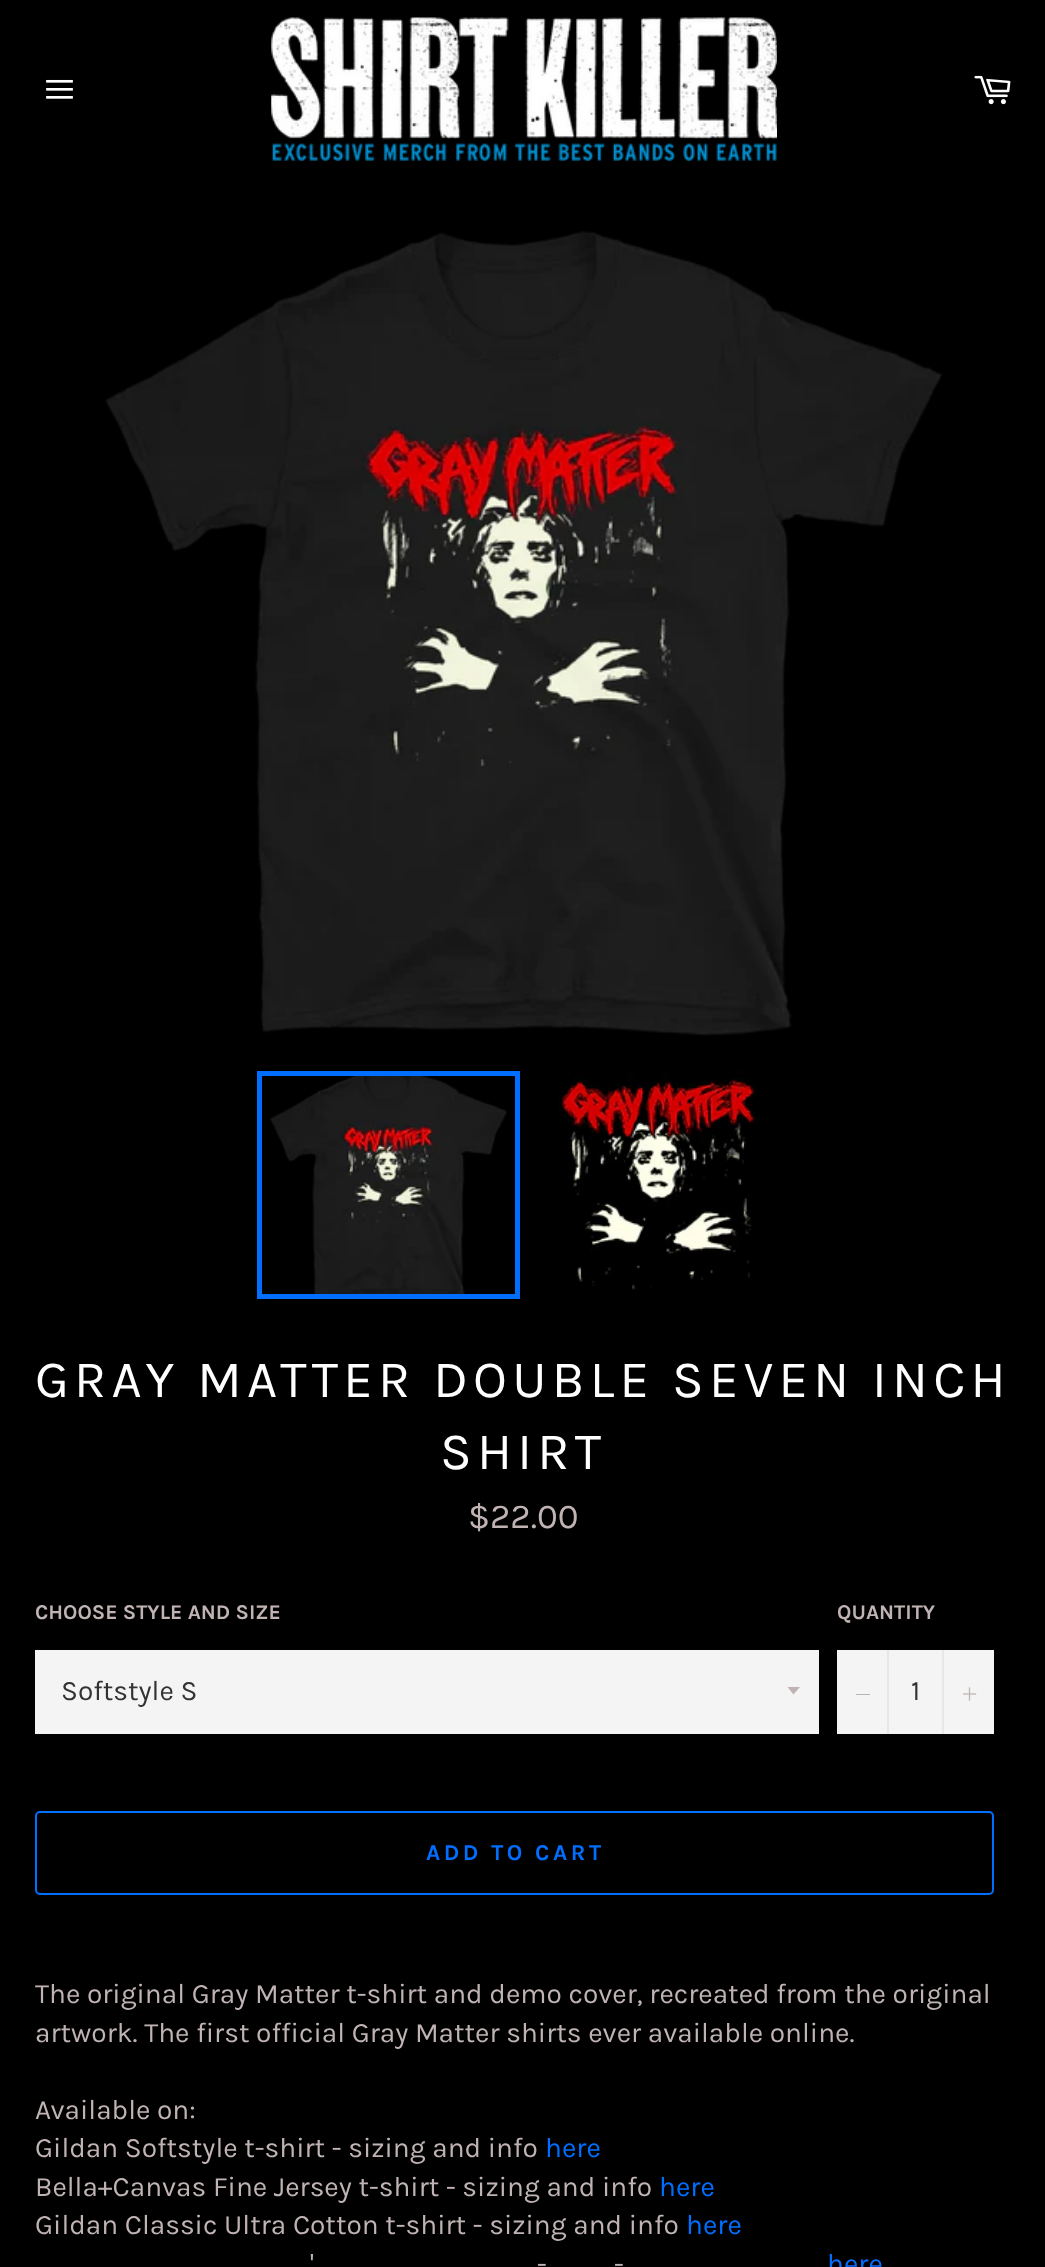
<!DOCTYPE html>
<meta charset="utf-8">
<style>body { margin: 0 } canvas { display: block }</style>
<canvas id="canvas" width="1045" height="2267"></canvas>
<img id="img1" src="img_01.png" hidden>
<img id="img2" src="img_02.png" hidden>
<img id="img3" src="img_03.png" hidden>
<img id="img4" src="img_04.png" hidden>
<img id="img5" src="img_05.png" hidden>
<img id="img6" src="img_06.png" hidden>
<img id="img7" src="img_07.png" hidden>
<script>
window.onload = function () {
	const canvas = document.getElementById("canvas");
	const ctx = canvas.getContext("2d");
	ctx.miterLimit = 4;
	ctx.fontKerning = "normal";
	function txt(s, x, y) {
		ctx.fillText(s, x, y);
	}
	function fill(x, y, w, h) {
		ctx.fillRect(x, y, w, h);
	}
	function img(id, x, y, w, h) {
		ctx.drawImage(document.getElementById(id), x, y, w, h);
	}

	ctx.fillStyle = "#000000";
	fill(0, 0, 1045, 2267);
	img("img1", 46, 79, 27, 20);
	img("img2", 271, 17, 506, 144);
	img("img3", 974, 75, 37, 30);
	img("img4", 105, 231, 837, 805);
	img("img5", 269, 1076, 238, 218);
	ctx.strokeStyle = "#006EFF";
	ctx.lineWidth = 5;
	ctx.strokeRect(259.5, 1073.5, 258, 223);
	img("img6", 558, 1071, 202, 219);
	ctx.fillStyle = "#F4F4F4";
	fill(35, 1650, 784, 84);
	ctx.fillStyle = "#C0B3B3";
	ctx.beginPath();
	ctx.moveTo(787.5, 1687);
	ctx.lineTo(793.5, 1694.5);
	ctx.lineTo(800, 1687);
	ctx.closePath();
	ctx.fill();
	ctx.fillStyle = "#F4F4F4";
	fill(837, 1650, 157, 84);
	ctx.fillStyle = "#E7E7E7";
	fill(887, 1650, 2, 84);
	ctx.fillStyle = "#C0B3B3";
	fill(856, 1694, 14, 1);
	ctx.fillStyle = "#E7E7E7";
	fill(942, 1650, 2, 84);
	img("img7", 963, 1687, 14, 14);
	ctx.beginPath();
	ctx.roundRect(36, 1812, 957, 82, 4);
	ctx.lineWidth = 2;
	ctx.stroke();
	ctx.letterSpacing = "5.25px";
	ctx.font = "52.5px Karla";
	ctx.fillStyle = "#FFFFFF";
	txt("GRAY MATTER DOUBLE SEVEN INCH", 35, 1397);
	txt("SHIRT", 440, 1469);
	ctx.letterSpacing = "0px";
	ctx.font = "35px Karla";
	ctx.fillStyle = "#C0B3B3";
	txt("$22.00", 468, 1528);
	ctx.font = "bold 21px Karla";
	txt("CHOOSE STYLE AND SIZE", 35, 1619);
	ctx.font = "28px Karla";
	ctx.fillStyle = "#333333";
	txt("Softstyle S", 61, 1700);
	ctx.font = "bold 21px Karla";
	ctx.fillStyle = "#C0B3B3";
	txt("QUANTITY", 837, 1619);
	ctx.font = "28px Karla";
	ctx.fillStyle = "#333333";
	txt("1", 911, 1700);
	ctx.letterSpacing = "3.5px";
	ctx.font = "bold 22.75px Karla";
	ctx.fillStyle = "#006EFF";
	txt("ADD TO CART", 426, 1860);
	ctx.letterSpacing = "0px";
	ctx.font = "28px Karla";
	ctx.fillStyle = "#C0B3B3";
	txt("The original Gray Matter t-shirt and demo cover, recreated from the original", 35, 2003);
	txt("artwork. The first official Gray Matter shirts ever available online.", 35, 2042);
	txt("Available on:", 35, 2119);
	txt("Gildan Softstyle t-shirt - sizing and info", 35, 2157);
	ctx.fillStyle = "#006EFF";
	txt("here", 545, 2157);
	ctx.fillStyle = "#C0B3B3";
	txt("Bella+Canvas Fine Jersey t-shirt - sizing and info", 35, 2196);
	ctx.fillStyle = "#006EFF";
	txt("here", 659, 2196);
	ctx.fillStyle = "#C0B3B3";
	txt("Gildan Classic Ultra Cotton t-shirt - sizing and info", 35, 2234);
	ctx.fillStyle = "#006EFF";
	txt("here", 686, 2234);
	ctx.fillStyle = "#C0B3B3";
	txt("'", 310, 2273);
	ctx.fillStyle = "#006EFF";
	txt("here", 827, 2273);
	ctx.fillStyle = "#C0B3B3";
	txt("-", 537, 2273);
	txt("-", 614, 2273);
};
</script>
